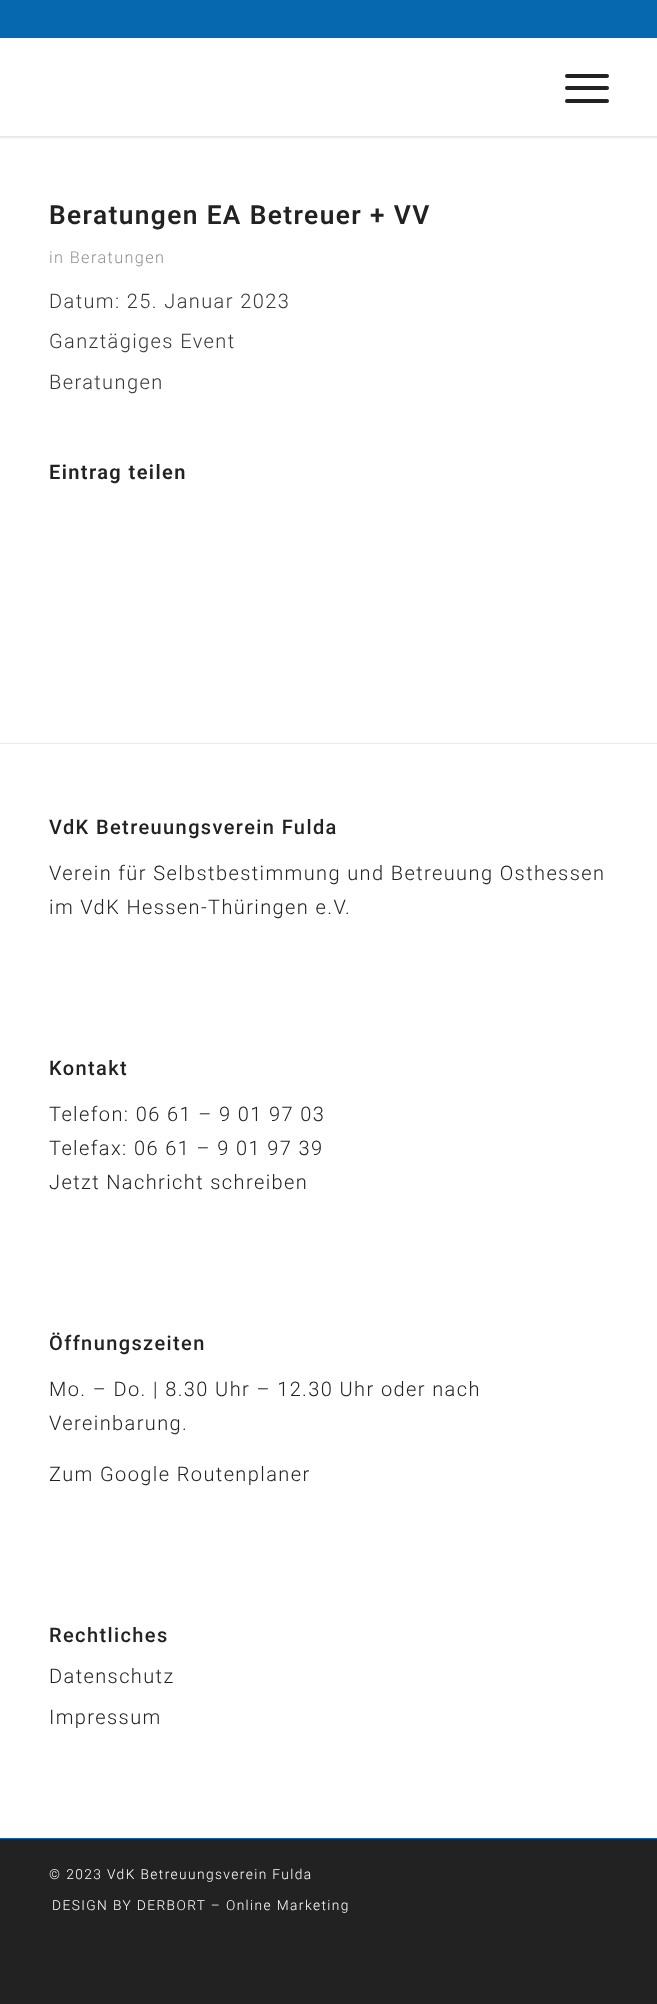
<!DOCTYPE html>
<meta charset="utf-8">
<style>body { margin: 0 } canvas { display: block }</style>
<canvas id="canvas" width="657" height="2004"></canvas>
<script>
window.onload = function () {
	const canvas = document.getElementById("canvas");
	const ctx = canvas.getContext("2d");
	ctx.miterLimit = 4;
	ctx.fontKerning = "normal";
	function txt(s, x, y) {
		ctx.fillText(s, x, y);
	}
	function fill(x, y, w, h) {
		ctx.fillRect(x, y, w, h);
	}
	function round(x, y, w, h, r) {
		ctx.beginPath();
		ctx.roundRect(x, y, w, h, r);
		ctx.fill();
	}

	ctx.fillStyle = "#222222";
	fill(0, 0, 657, 2004);
	ctx.fillStyle = "#FFFFFF";
	fill(0, 38, 657, 1800);
	ctx.save();
	ctx.beginPath();
	ctx.rect(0, 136, 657, 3);
	ctx.clip();
	ctx.fillStyle = "rgba(0, 0, 0, 0.1)";
	ctx.filter = "blur(1px)";
	ctx.beginPath();
	ctx.rect(-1, -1, 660, 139);
	ctx.fill();
	ctx.filter = "none";
	ctx.restore();
	ctx.fillStyle = "#0669AF";
	fill(0, 0, 657, 38);
	ctx.fillStyle = "#222222";
	round(565, 86, 44, 4, 2);
	round(565, 74, 44, 4, 2);
	round(565, 99, 44, 4, 2);
	ctx.fillStyle = "#EAEAEA";
	fill(0, 743, 657, 1);
	ctx.fillStyle = "#0669AF";
	fill(0, 1838, 657, 1);
	ctx.letterSpacing = "1.4px";
	ctx.font = "600 26.25px Roboto";
	ctx.fillStyle = "#222222";
	txt("Beratungen EA Betreuer + VV", 49, 224);
	ctx.font = "300 16.25px Roboto";
	ctx.fillStyle = "#919191";
	txt("in Beratungen", 49, 263);
	ctx.font = "300 20px Roboto";
	ctx.fillStyle = "#383838";
	txt("Datum: 25. Januar 2023", 49, 308);
	txt("Ganztägiges Event", 49, 348);
	txt("Beratungen", 49, 389);
	ctx.font = "600 20px Roboto";
	ctx.fillStyle = "#222222";
	txt("Eintrag teilen", 49, 479);
	ctx.font = "500 20px Roboto";
	txt("VdK Betreuungsverein Fulda", 49, 834);
	ctx.font = "300 20px Roboto";
	txt("Verein für Selbstbestimmung und Betreuung Osthessen", 49, 880);
	txt("im VdK Hessen-Thüringen e.V.", 49, 914);
	ctx.font = "500 20px Roboto";
	txt("Kontakt", 49, 1075);
	ctx.font = "300 20px Roboto";
	txt("Telefon: 06 61 – 9 01 97 03", 49, 1121);
	txt("Telefax: 06 61 – 9 01 97 39", 49, 1155);
	txt("Jetzt Nachricht schreiben", 49, 1189);
	ctx.font = "500 20px Roboto";
	txt("Öffnungszeiten", 49, 1350);
	ctx.font = "300 20px Roboto";
	txt("Mo. – Do. | 8.30 Uhr – 12.30 Uhr oder nach", 49, 1396);
	txt("Vereinbarung.", 49, 1430);
	txt("Zum Google Routenplaner", 49, 1481);
	ctx.font = "500 20px Roboto";
	txt("Rechtliches", 49, 1642);
	ctx.font = "300 20px Roboto";
	txt("Datenschutz", 49, 1683);
	txt("Impressum", 49, 1724);
	ctx.font = "300 13.75px Roboto";
	ctx.fillStyle = "#FFFFFF";
	txt("© 2023 VdK Betreuungsverein Fulda", 49, 1879);
	txt("DESIGN BY DERBORT – Online Marketing", 52, 1910);
};
</script>
